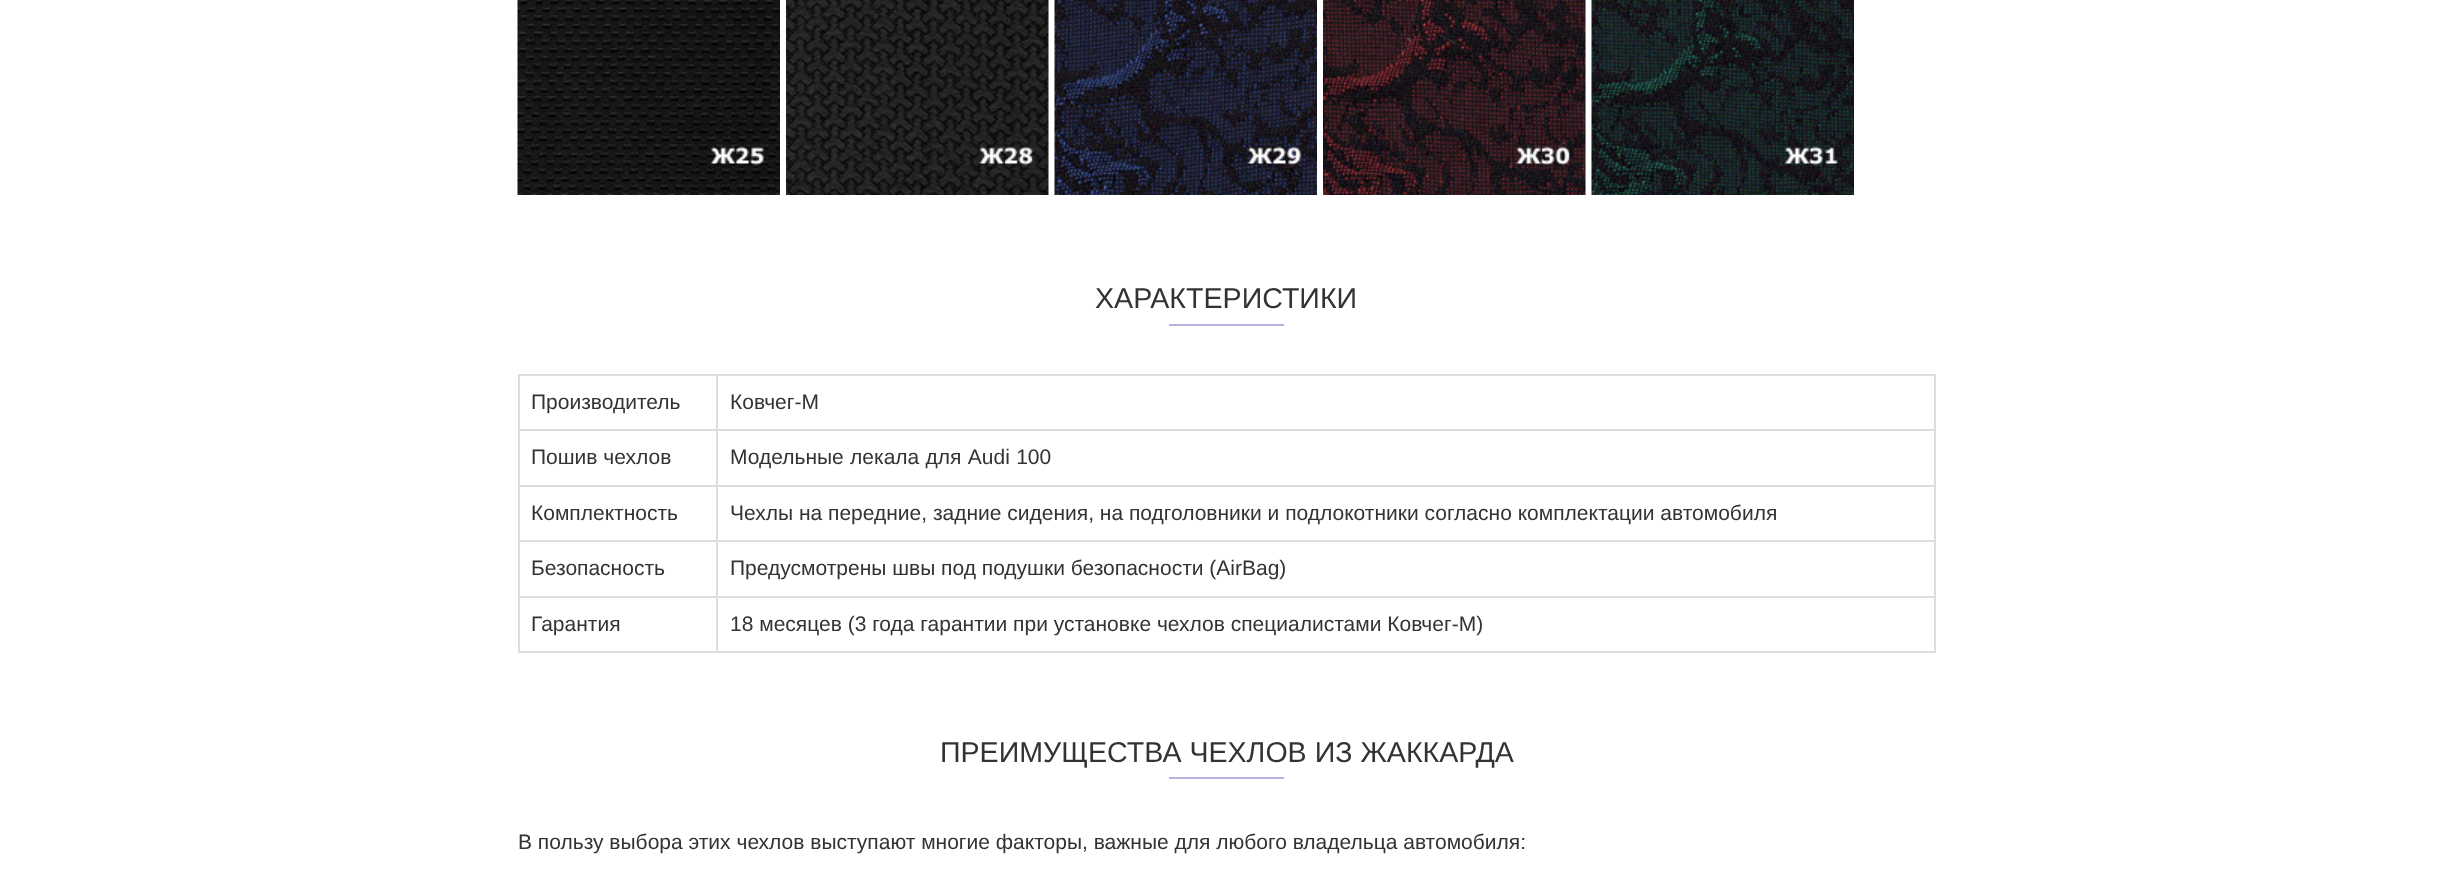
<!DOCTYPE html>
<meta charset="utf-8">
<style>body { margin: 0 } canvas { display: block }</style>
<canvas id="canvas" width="2459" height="870"></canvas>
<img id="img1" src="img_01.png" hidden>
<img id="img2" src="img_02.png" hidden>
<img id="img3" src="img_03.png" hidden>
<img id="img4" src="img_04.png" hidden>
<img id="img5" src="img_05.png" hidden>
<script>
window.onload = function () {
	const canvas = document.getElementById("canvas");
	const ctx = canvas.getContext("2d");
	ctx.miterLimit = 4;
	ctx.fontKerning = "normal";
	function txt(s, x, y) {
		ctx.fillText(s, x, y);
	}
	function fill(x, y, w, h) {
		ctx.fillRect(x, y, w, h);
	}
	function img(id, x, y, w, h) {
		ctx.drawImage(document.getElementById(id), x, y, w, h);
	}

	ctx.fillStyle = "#FFFFFF";
	fill(0, 0, 2459, 870);
	img("img1", 517, 0, 263, 195);
	img("img2", 786, 0, 263, 195);
	img("img3", 1054, 0, 263, 195);
	img("img4", 1323, 0, 263, 195);
	img("img5", 1591, 0, 263, 195);
	ctx.fillStyle = "#B8B0E1";
	fill(1169, 324, 115, 2);
	ctx.fillStyle = "#DDDDDD";
	fill(518, 374, 1417, 2);
	fill(1934, 374, 2, 279);
	fill(518, 651, 1417, 2);
	fill(518, 374, 2, 279);
	fill(716, 429, 1219, 2);
	fill(716, 485, 1219, 2);
	fill(716, 540, 1219, 2);
	fill(716, 596, 1219, 2);
	fill(716, 596, 2, 57);
	fill(518, 596, 199, 2);
	fill(716, 540, 2, 57);
	fill(518, 540, 199, 2);
	fill(716, 485, 2, 57);
	fill(518, 485, 199, 2);
	fill(716, 429, 2, 57);
	fill(518, 429, 199, 2);
	fill(716, 374, 2, 57);
	ctx.fillStyle = "#B8B0E1";
	fill(1169, 777, 115, 2);
	ctx.font = "28.6px Liberation Sans";
	ctx.fillStyle = "#333333";
	txt("ХАРАКТЕРИСТИКИ", 1095, 308);
	ctx.font = "21px Liberation Sans";
	txt("Производитель", 531, 409);
	txt("Ковчег-М", 730, 409);
	txt("Пошив чехлов", 531, 464);
	ctx.wordSpacing = "0.5px";
	txt("Модельные лекала для Audi 100", 730, 464);
	ctx.wordSpacing = "0px";
	txt("Комплектность", 531, 520);
	txt("Чехлы на передние, задние сидения, на подголовники и подлокотники согласно комплектации автомобиля", 730, 520);
	txt("Безопасность", 531, 575);
	txt("Предусмотрены швы под подушки безопасности (AirBag)", 730, 575);
	txt("Гарантия", 531, 631);
	txt("18 месяцев (3 года гарантии при установке чехлов специалистами Ковчег-М)", 730, 631);
	ctx.font = "28.6px Liberation Sans";
	txt("ПРЕИМУЩЕСТВА ЧЕХЛОВ ИЗ ЖАККАРДА", 940, 762);
	ctx.font = "21px Liberation Sans";
	txt("В пользу выбора этих чехлов выступают многие факторы, важные для любого владельца автомобиля:", 518, 849);
};
</script>
